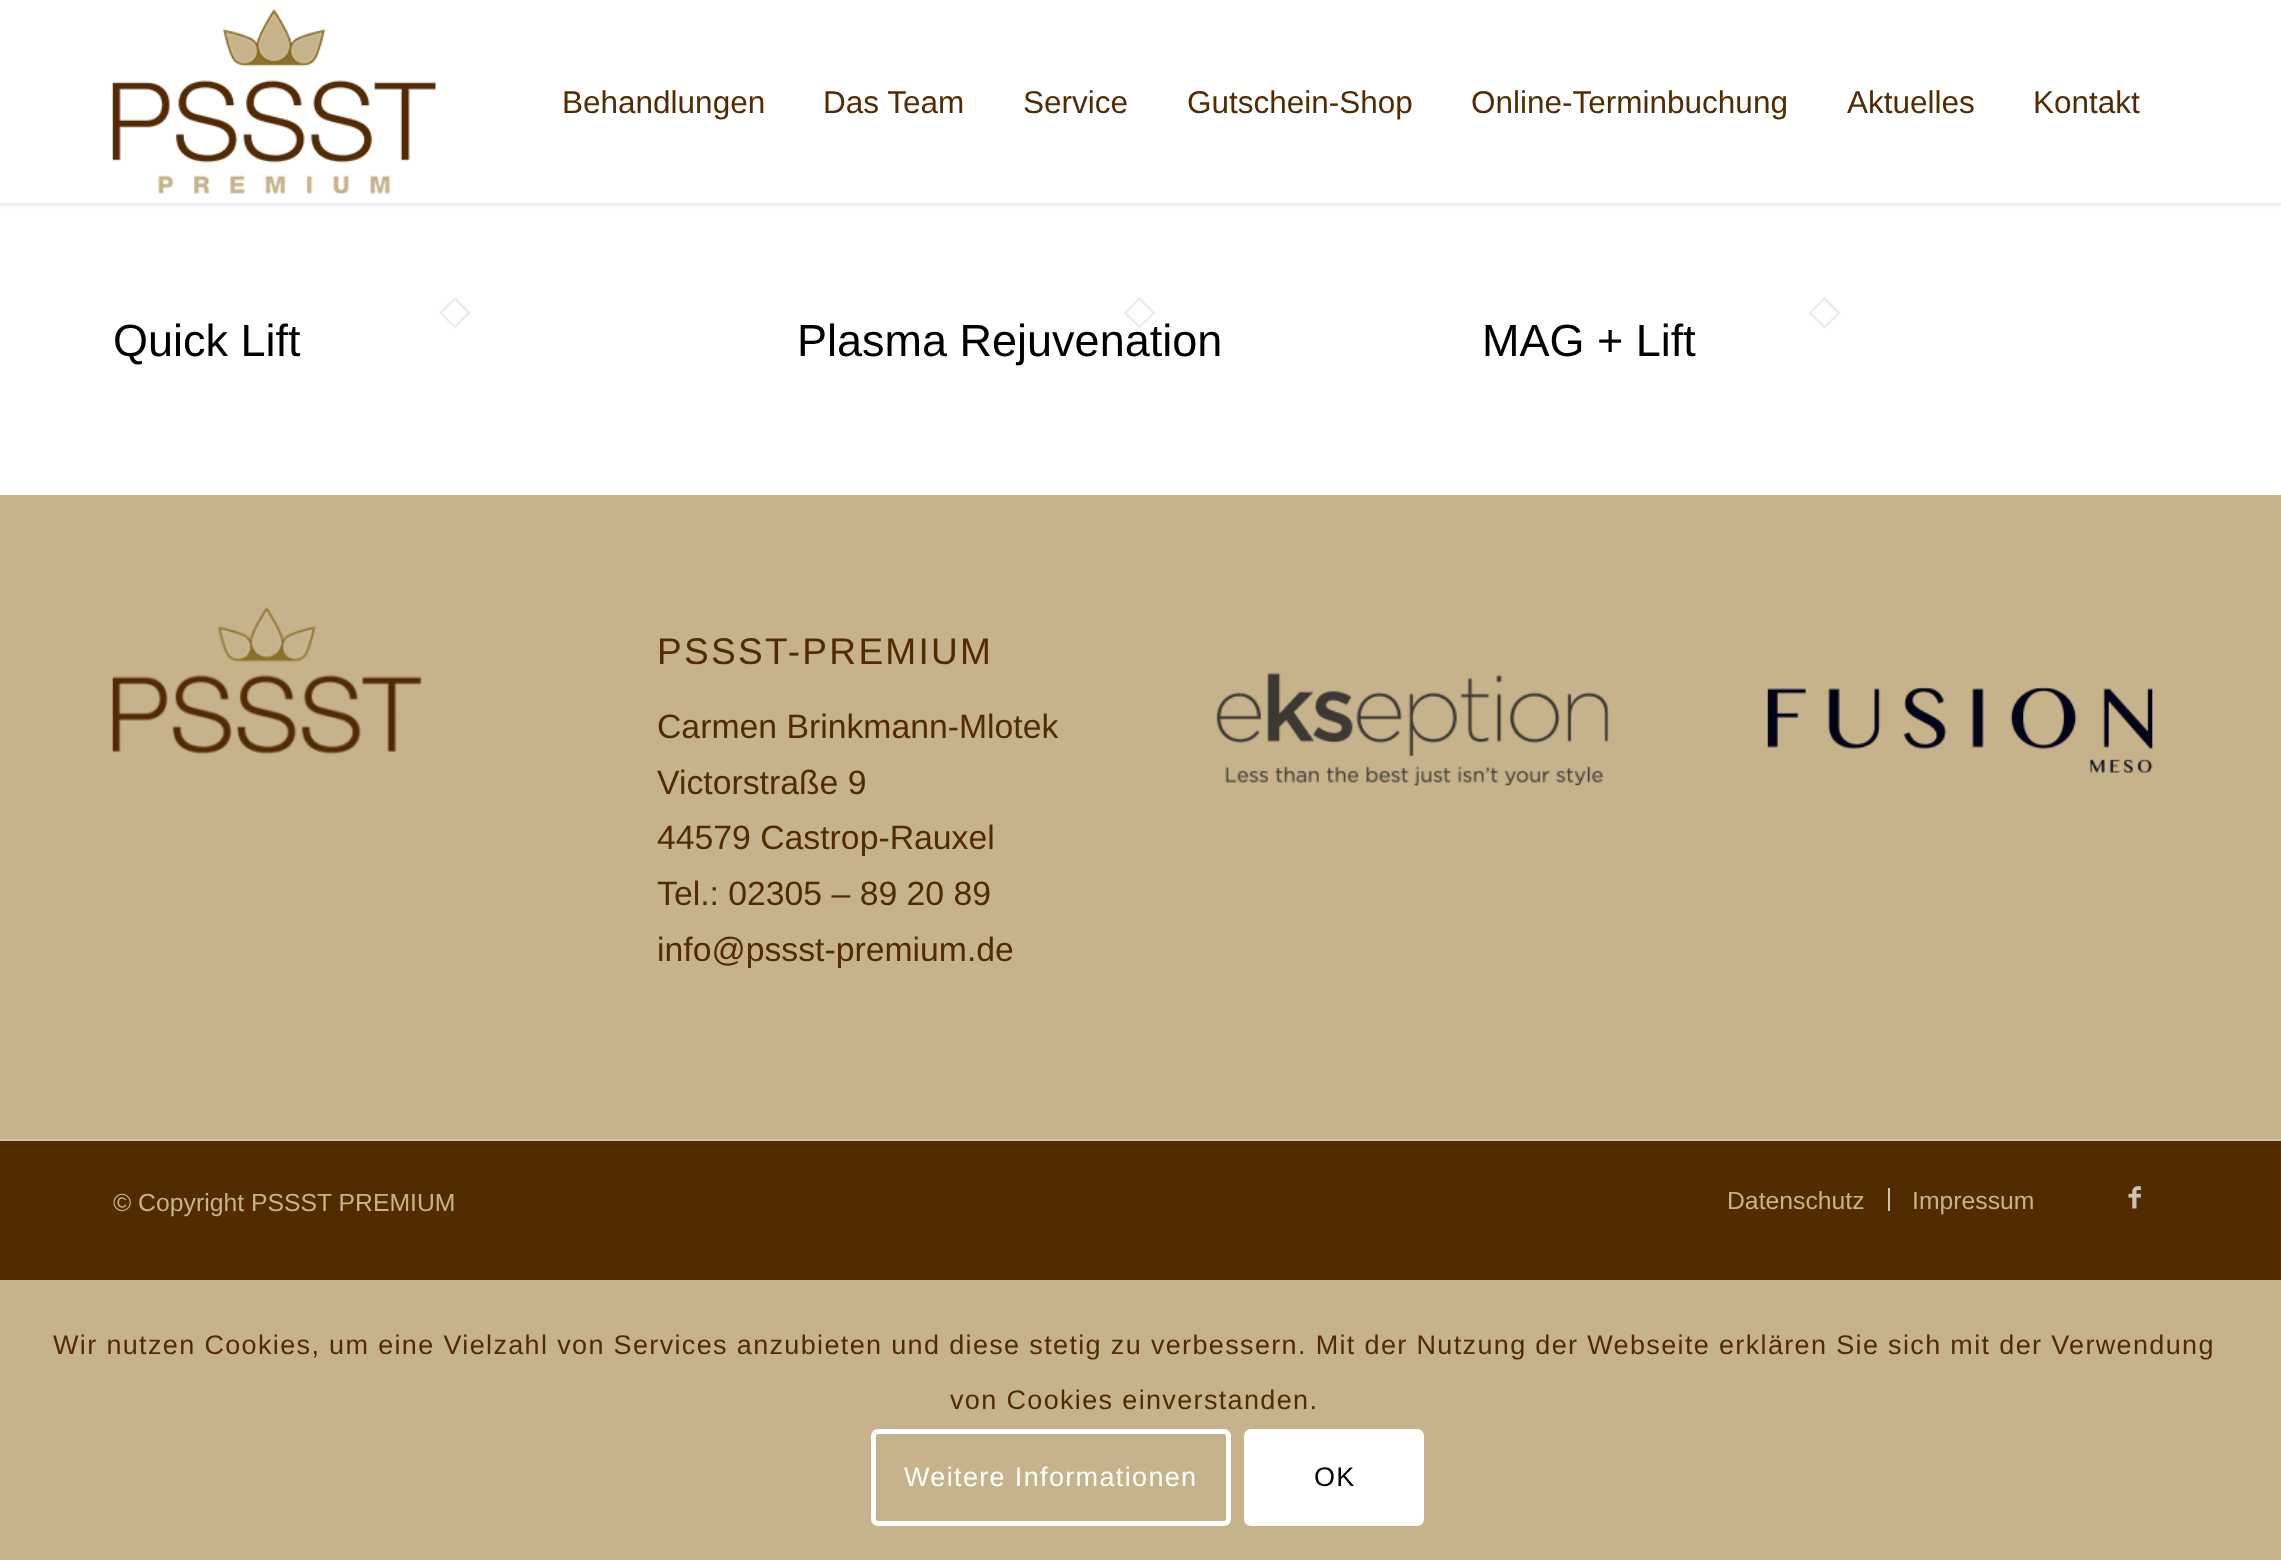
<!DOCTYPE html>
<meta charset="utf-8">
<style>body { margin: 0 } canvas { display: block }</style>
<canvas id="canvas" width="2281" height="1560"></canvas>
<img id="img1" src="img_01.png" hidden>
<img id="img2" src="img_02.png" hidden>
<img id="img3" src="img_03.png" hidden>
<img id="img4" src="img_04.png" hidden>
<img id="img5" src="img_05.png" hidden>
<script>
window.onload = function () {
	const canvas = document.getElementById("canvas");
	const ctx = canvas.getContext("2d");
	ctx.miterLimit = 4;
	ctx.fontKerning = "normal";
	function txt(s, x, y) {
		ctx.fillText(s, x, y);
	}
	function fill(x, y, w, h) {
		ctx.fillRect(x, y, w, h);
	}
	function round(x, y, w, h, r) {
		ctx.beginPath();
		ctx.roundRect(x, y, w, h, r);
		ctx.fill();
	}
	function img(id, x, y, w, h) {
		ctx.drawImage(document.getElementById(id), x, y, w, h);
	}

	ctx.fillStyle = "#522C00";
	fill(0, 0, 2281, 1560);
	ctx.fillStyle = "#FFFFFF";
	fill(0, 203, 2281, 292);
	ctx.fillStyle = "rgba(0, 0, 0, 0.1)";
	ctx.filter = "blur(2px)";
	ctx.beginPath();
	ctx.rect(-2, -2, 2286, 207);
	ctx.fill();
	ctx.filter = "none";
	ctx.fillStyle = "#FFFFFF";
	fill(0, 0, 2281, 203);
	img("img1", 112, 9, 324, 185);
	ctx.beginPath();
	ctx.moveTo(455, 298.5);
	ctx.lineTo(469, 313);
	ctx.lineTo(455, 327);
	ctx.lineTo(440.5, 313);
	ctx.closePath();
	ctx.strokeStyle = "#EBEBEB";
	ctx.lineWidth = 2.3;
	ctx.stroke();
	ctx.beginPath();
	ctx.moveTo(1824.5, 298.5);
	ctx.lineTo(1839, 313);
	ctx.lineTo(1824.5, 327);
	ctx.lineTo(1810, 313);
	ctx.closePath();
	ctx.stroke();
	ctx.fillStyle = "#C6B38B";
	fill(0, 495, 2281, 644);
	img("img2", 112, 606, 310, 149);
	img("img3", 1216, 672, 393, 114);
	img("img4", 1767, 687, 386, 86);
	ctx.fillStyle = "#CCC5B6";
	fill(0, 1139, 2281, 2);
	fill(1888, 1188, 2, 23);
	img("img5", 2128, 1186, 13, 23);
	ctx.fillStyle = "#C6B38B";
	fill(0, 1280, 2281, 280);
	ctx.beginPath();
	ctx.roundRect(873.5, 1431.5, 355, 92, 4.5);
	ctx.strokeStyle = "#FFFFFF";
	ctx.lineWidth = 5;
	ctx.stroke();
	ctx.fillStyle = "#FFFFFF";
	round(1244, 1429, 180, 97, 7);
	ctx.font = "31.5px Liberation Sans";
	ctx.fillStyle = "#522C00";
	txt("Behandlungen", 562, 113);
	txt("Das Team", 823, 113);
	txt("Service", 1023, 113);
	txt("Gutschein-Shop", 1187, 113);
	txt("Online-Terminbuchung", 1471, 113);
	txt("Aktuelles", 1847, 113);
	txt("Kontakt", 2033, 113);
	ctx.font = "45px Liberation Sans";
	ctx.fillStyle = "#000000";
	txt("Quick Lift", 113, 356);
	txt("Plasma Rejuvenation", 797, 356);
	ctx.beginPath();
	ctx.moveTo(1139.5, 298.5);
	ctx.lineTo(1154, 313);
	ctx.lineTo(1139.5, 327);
	ctx.lineTo(1125.5, 313);
	ctx.closePath();
	ctx.strokeStyle = "#EBEBEB";
	ctx.lineWidth = 2.3;
	ctx.stroke();
	txt("MAG + Lift", 1482, 356);
	ctx.letterSpacing = "2.25px";
	ctx.font = "37.1px Liberation Sans";
	ctx.fillStyle = "#522C00";
	txt("PSSST-PREMIUM", 657, 664);
	ctx.letterSpacing = "0px";
	ctx.font = "33.75px Liberation Sans";
	txt("Carmen Brinkmann-Mlotek", 657, 738);
	txt("Victorstraße 9", 657, 794);
	txt("44579 Castrop-Rauxel", 657, 849);
	txt("Tel.: 02305 – 89 20 89", 657, 905);
	txt("info@pssst-premium.de", 657, 961);
	ctx.font = "24.75px Liberation Sans";
	ctx.fillStyle = "#C6B38B";
	txt("© Copyright PSSST PREMIUM", 113, 1211);
	txt("Datenschutz", 1727, 1209);
	txt("Impressum", 1912, 1209);
	ctx.letterSpacing = "1.35px";
	ctx.font = "27px Liberation Sans";
	ctx.fillStyle = "#522C00";
	txt("Wir nutzen Cookies, um eine Vielzahl von Services anzubieten und diese stetig zu verbessern. Mit der Nutzung der Webseite erklären Sie sich mit der Verwendung", 53, 1354);
	txt("von Cookies einverstanden.", 950, 1409);
	ctx.fillStyle = "#FFFFFF";
	txt("Weitere Informationen", 904, 1486);
	ctx.fillStyle = "#000000";
	txt("OK", 1314, 1486);
};
</script>
